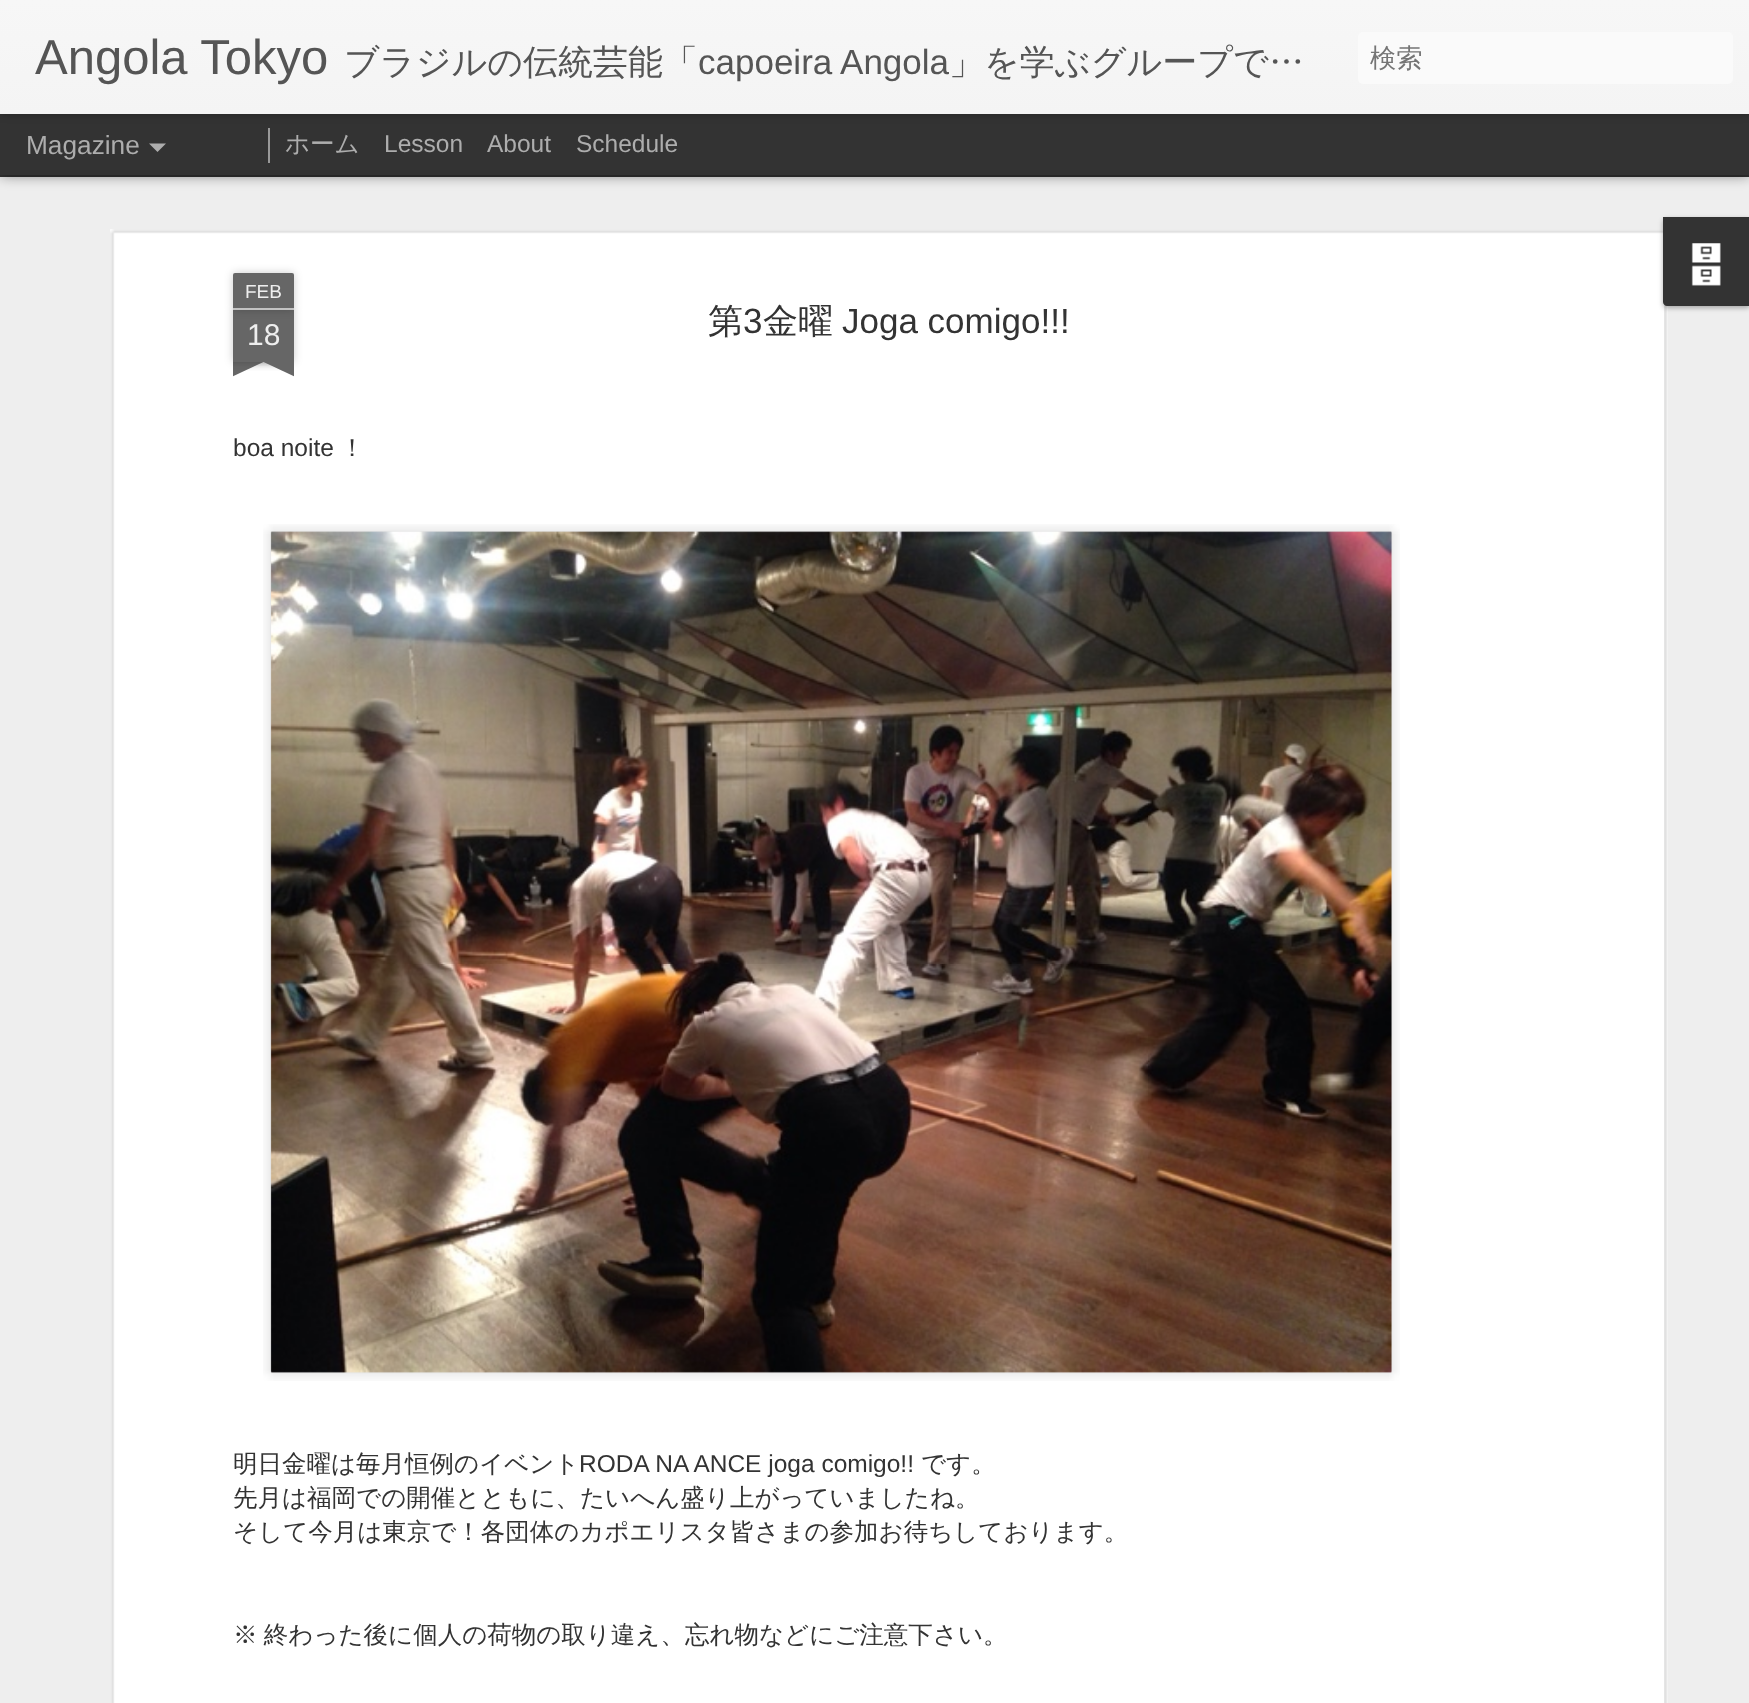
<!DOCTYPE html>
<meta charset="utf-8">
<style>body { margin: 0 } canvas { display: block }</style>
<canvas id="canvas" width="1749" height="1703"></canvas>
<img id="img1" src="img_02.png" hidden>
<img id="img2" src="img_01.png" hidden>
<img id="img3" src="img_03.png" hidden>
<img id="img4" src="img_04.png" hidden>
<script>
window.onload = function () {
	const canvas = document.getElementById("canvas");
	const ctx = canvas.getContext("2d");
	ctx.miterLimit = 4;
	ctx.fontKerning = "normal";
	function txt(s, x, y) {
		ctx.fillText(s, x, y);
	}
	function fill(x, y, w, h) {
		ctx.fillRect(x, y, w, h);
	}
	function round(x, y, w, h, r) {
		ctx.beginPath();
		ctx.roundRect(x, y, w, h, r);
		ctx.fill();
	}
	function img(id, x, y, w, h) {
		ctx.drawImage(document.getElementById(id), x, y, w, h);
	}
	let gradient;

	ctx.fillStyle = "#333333";
	fill(0, 0, 1749, 1703);
	ctx.fillStyle = "#EEEEEE";
	fill(0, 177, 1749, 1526);
	ctx.fillStyle = "rgba(0, 0, 0, 0.5)";
	ctx.filter = "blur(7px)";
	ctx.beginPath();
	ctx.rect(0, 114, 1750, 61);
	ctx.fill();
	ctx.filter = "none";
	ctx.fillStyle = "#333333";
	fill(0, 114, 1749, 61);
	ctx.fillStyle = "#999999";
	fill(268, 128, 2, 35);
	ctx.fillStyle = "rgba(0, 0, 0, 0.3)";
	ctx.filter = "blur(4.5px)";
	ctx.beginPath();
	ctx.rect(0, 0, 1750, 114);
	ctx.fill();
	ctx.filter = "none";
	gradient = ctx.createLinearGradient(0, 0, 0, 114);
	gradient.addColorStop(0, "#F7F7F7");
	gradient.addColorStop(1, "#F4F4F4");
	ctx.fillStyle = gradient;
	fill(0, 0, 1749, 114);
	ctx.fillStyle = "#FAFAFA";
	round(1358, 32, 375, 52, 5);
	ctx.fillStyle = "#ADADAD";
	ctx.beginPath();
	ctx.moveTo(149, 143.5);
	ctx.lineTo(166, 143.5);
	ctx.lineTo(157.5, 152);
	ctx.closePath();
	ctx.fill();
	ctx.fillStyle = "#FFFFFF";
	fill(110, 229, 1558, 1474);
	img("img1", 110, 229, 1558, 1474);
	ctx.fillStyle = "rgba(0, 0, 0, 0.3)";
	ctx.filter = "blur(2.5px)";
	ctx.beginPath();
	ctx.roundRect(1663, 219, 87, 89, 4);
	ctx.fill();
	ctx.filter = "none";
	ctx.fillStyle = "#333333";
	ctx.beginPath();
	ctx.moveTo(1663, 217);
	ctx.lineTo(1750, 217);
	ctx.lineTo(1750, 306);
	ctx.lineTo(1667, 306);
	ctx.bezierCurveTo(1665, 306, 1663, 304, 1663, 302);
	ctx.closePath();
	ctx.fill();
	img("img2", 1691, 243, 30, 43);
	ctx.fillStyle = "rgba(0, 0, 0, 0.2)";
	ctx.filter = "blur(4.5px)";
	ctx.beginPath();
	ctx.rect(233, 310, 61, 52);
	ctx.fill();
	ctx.filter = "none";
	ctx.fillStyle = "#666666";
	fill(233, 310, 61, 52);
	ctx.fillStyle = "rgba(0, 0, 0, 0.2)";
	ctx.filter = "blur(4.5px)";
	ctx.beginPath();
	ctx.roundRect(233, 273, 61, 37, 2);
	ctx.fill();
	ctx.filter = "none";
	ctx.fillStyle = "#666666";
	ctx.beginPath();
	ctx.roundRect(233, 273, 61, 37, [2, 2, 0, 0]);
	ctx.fill();
	ctx.fillStyle = "#C2C2C2";
	fill(233, 308, 61, 2);
	ctx.save();
	ctx.beginPath();
	ctx.rect(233, 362, 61, 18);
	ctx.clip();
	ctx.fillStyle = "rgba(0, 0, 0, 0.2)";
	ctx.filter = "blur(4.5px)";
	ctx.beginPath();
	ctx.rect(217, 345, 88, 17);
	ctx.fill();
	ctx.filter = "none";
	ctx.restore();
	ctx.save();
	ctx.beginPath();
	ctx.rect(233, 362, 61, 18);
	ctx.clip();
	ctx.fillStyle = "#666666";
	ctx.beginPath();
	ctx.moveTo(217, 364);
	ctx.lineTo(297, 327);
	ctx.lineTo(304, 343);
	ctx.lineTo(225, 380);
	ctx.closePath();
	ctx.fill();
	ctx.restore();
	ctx.save();
	ctx.beginPath();
	ctx.rect(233, 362, 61, 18);
	ctx.clip();
	ctx.fillStyle = "rgba(0, 0, 0, 0.2)";
	ctx.filter = "blur(4.5px)";
	ctx.beginPath();
	ctx.rect(222, 345, 88, 17);
	ctx.fill();
	ctx.filter = "none";
	ctx.restore();
	ctx.save();
	ctx.beginPath();
	ctx.rect(233, 362, 61, 18);
	ctx.clip();
	ctx.fillStyle = "#666666";
	ctx.beginPath();
	ctx.moveTo(230, 327);
	ctx.lineTo(309, 364);
	ctx.lineTo(302, 380);
	ctx.lineTo(223, 343);
	ctx.closePath();
	ctx.fill();
	ctx.restore();
	img("img3", 263, 524, 1137, 857);
	img("img4", 270, 531, 1122, 842);
	ctx.font = "49px Liberation Sans";
	ctx.fillStyle = "#555555";
	txt("Angola Tokyo", 35, 74);
	ctx.font = "500 35px WenQuanYi Zen Hei";
	txt("ブラジルの伝統芸能「", 344, 74);
	ctx.font = "35px Liberation Sans";
	txt("capoeira Angola", 698, 74);
	ctx.font = "500 35px WenQuanYi Zen Hei";
	txt("」を学ぶグループで…", 949, 74);
	ctx.font = "500 26.25px WenQuanYi Zen Hei";
	ctx.fillStyle = "#757575";
	txt("検索", 1370, 67);
	ctx.font = "26.25px Liberation Sans";
	ctx.fillStyle = "#ADADAD";
	txt("Magazine", 26, 154);
	ctx.font = "500 24.5px WenQuanYi Zen Hei";
	txt("ホーム", 285, 152);
	ctx.font = "24.5px Liberation Sans";
	txt("Lesson", 384, 152);
	txt("About", 487, 152);
	txt("Schedule", 576, 152);
	ctx.font = "19px Liberation Sans";
	ctx.fillStyle = "#EEEEEE";
	txt("FEB", 245, 298);
	ctx.font = "30px Liberation Sans";
	txt("18", 247, 345);
	ctx.font = "500 35px WenQuanYi Zen Hei";
	ctx.fillStyle = "#333333";
	txt("第", 708, 333);
	ctx.font = "35px Liberation Sans";
	txt("3", 743, 333);
	ctx.font = "500 35px WenQuanYi Zen Hei";
	txt("金曜", 763, 333);
	ctx.font = "35px Liberation Sans";
	txt("Joga comigo!!!", 842, 333);
	ctx.font = "24.5px Liberation Sans";
	txt("boa noite", 233, 456);
	ctx.font = "500 24.5px WenQuanYi Zen Hei";
	txt("！", 340, 456);
	txt("明日金曜は毎月恒例のイベント", 233, 1472);
	ctx.font = "24.5px Liberation Sans";
	txt("RODA NA ANCE joga comigo!!", 579, 1472);
	ctx.font = "500 24.5px WenQuanYi Zen Hei";
	txt("です。", 921, 1472);
	txt("先月は福岡での開催とともに、たいへん盛り上がっていましたね。", 233, 1506);
	txt("そして今月は東京で！各団体のカポエリスタ皆さまの参加お待ちしております。", 233, 1540);
	ctx.wordSpacing = "-1px";
	txt("※ 終わった後に個人の荷物の取り違え、忘れ物などにご注意下さい。", 233, 1643);
};
</script>
